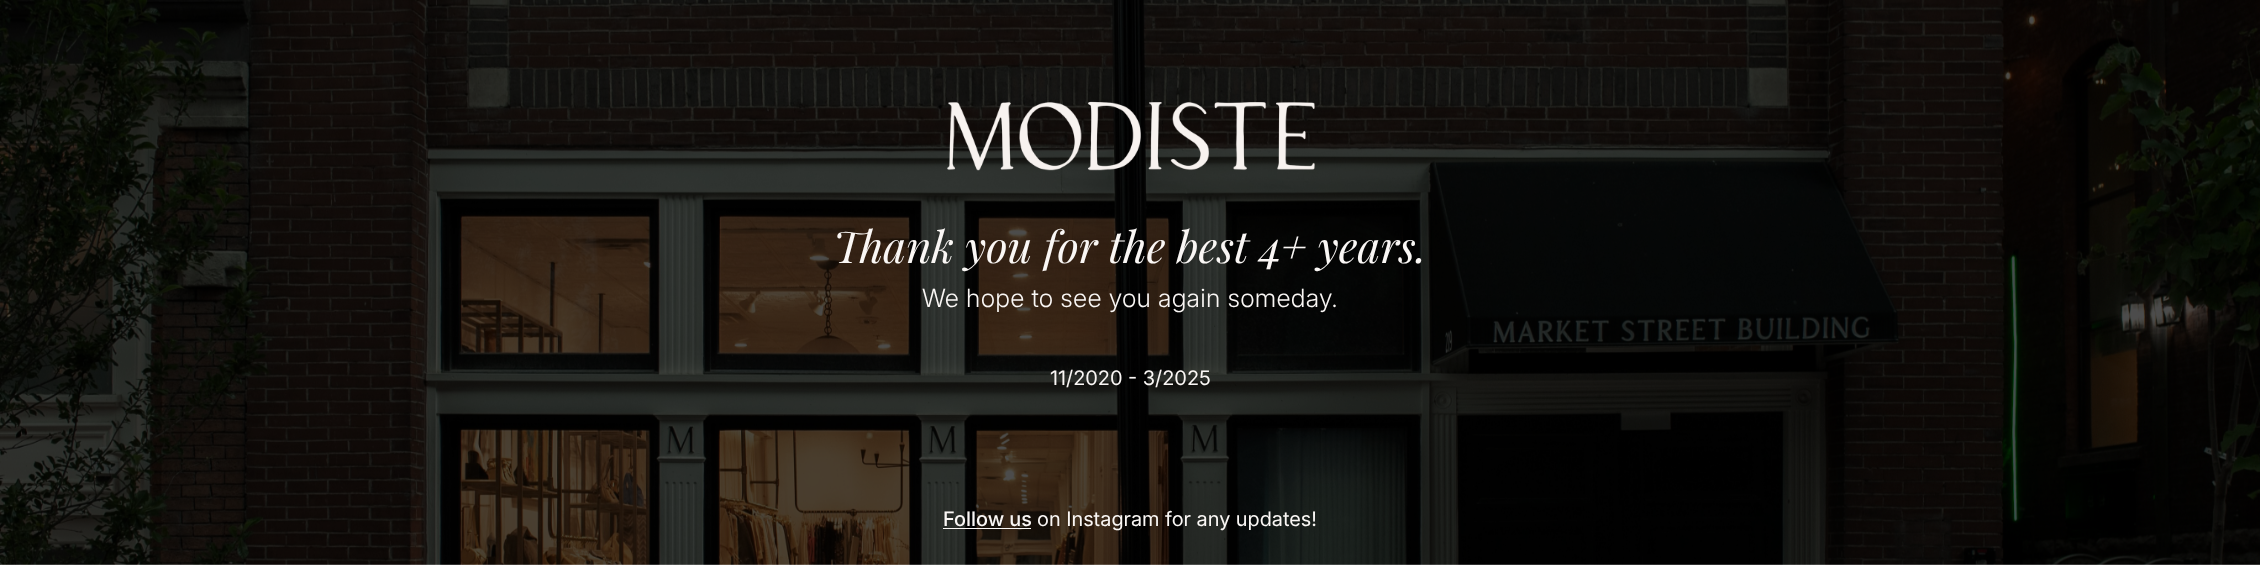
<!DOCTYPE html>
<meta charset="utf-8">
<style>body { margin: 0 } canvas { display: block }</style>
<canvas id="canvas" width="2260" height="565"></canvas>
<img id="img1" src="img_01.png" hidden>
<img id="img2" src="img_02.png" hidden>
<script>
window.onload = function () {
	const canvas = document.getElementById("canvas");
	const ctx = canvas.getContext("2d");
	ctx.miterLimit = 4;
	ctx.fontKerning = "normal";
	function txt(s, x, y) {
		ctx.fillText(s, x, y);
	}
	function fill(x, y, w, h) {
		ctx.fillRect(x, y, w, h);
	}
	function img(id, x, y, w, h) {
		ctx.drawImage(document.getElementById(id), x, y, w, h);
	}

	ctx.fillStyle = "#FFFFFF";
	fill(0, 0, 2260, 565);
	img("img1", 0, 0, 2260, 565);
	img("img2", 947, 101, 368, 70);
	ctx.fillStyle = "#FAF7F5";
	fill(943, 528, 88, 1);
	ctx.font = "italic 43.75px Playfair Display";
	txt("Thank you for the best 4+ years.", 833, 263);
	ctx.letterSpacing = "0.25px";
	ctx.font = "300 25px Inter";
	txt("We hope to see you again someday.", 922, 307);
	ctx.letterSpacing = "0px";
	ctx.font = "20px Inter";
	txt("11/2020 - 3/2025", 1050, 385);
	ctx.font = "500 20px Inter";
	txt("Follow us", 943, 526);
	ctx.font = "20px Inter";
	txt("on Instagram for any updates!", 1037, 526);
};
</script>
